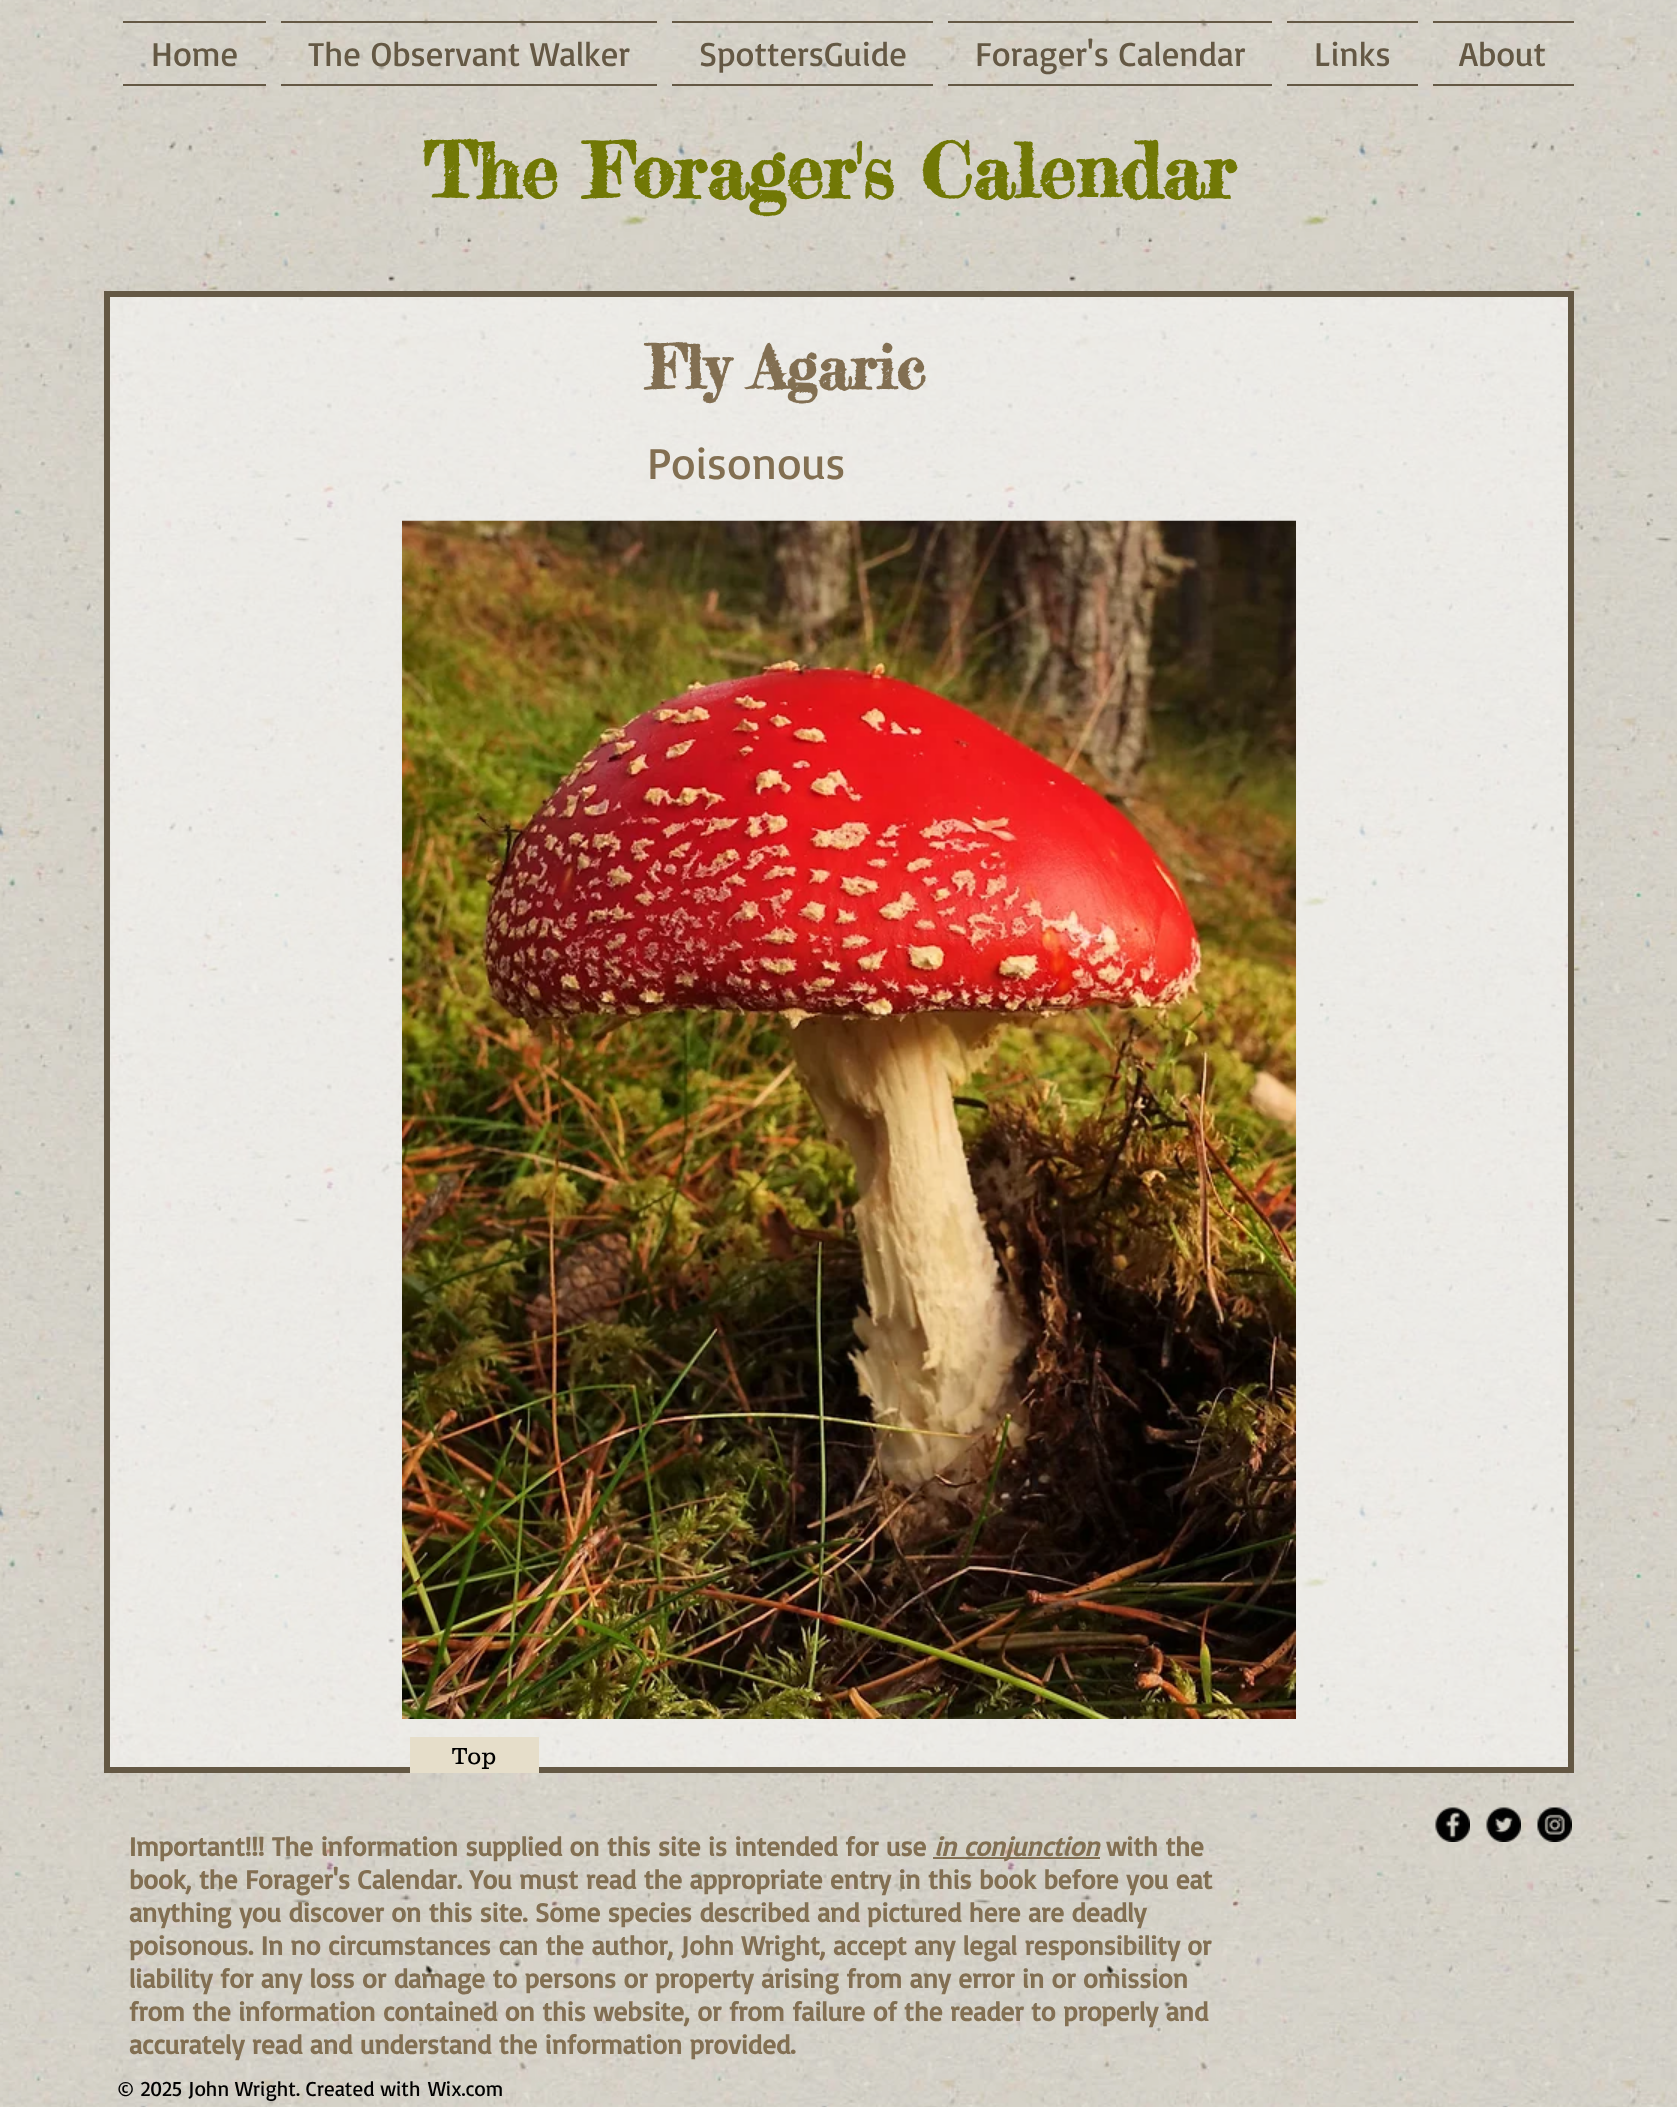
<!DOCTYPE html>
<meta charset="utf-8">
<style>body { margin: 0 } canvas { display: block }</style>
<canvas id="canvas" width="1677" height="2107"></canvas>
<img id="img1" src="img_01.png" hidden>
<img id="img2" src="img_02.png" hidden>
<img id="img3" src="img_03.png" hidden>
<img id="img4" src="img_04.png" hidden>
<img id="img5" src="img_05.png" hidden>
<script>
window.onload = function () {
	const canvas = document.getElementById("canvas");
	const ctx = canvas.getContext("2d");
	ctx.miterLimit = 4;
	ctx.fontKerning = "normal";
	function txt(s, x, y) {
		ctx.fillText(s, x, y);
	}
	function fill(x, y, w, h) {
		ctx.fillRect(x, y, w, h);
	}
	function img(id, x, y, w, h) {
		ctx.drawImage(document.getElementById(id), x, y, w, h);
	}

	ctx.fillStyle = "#FFFFFF";
	fill(0, 0, 1677, 2107);
	img("img1", 0, 0, 1677, 2107);
	ctx.fillStyle = "#645844";
	fill(123, 21, 143, 2);
	fill(123, 84, 143, 2);
	fill(281, 21, 376, 2);
	fill(281, 84, 376, 2);
	fill(672, 21, 261, 2);
	fill(672, 84, 261, 2);
	fill(948, 21, 324, 2);
	fill(948, 84, 324, 2);
	fill(1287, 21, 131, 2);
	fill(1287, 84, 131, 2);
	fill(1433, 21, 141, 2);
	fill(1433, 84, 141, 2);
	ctx.fillStyle = "rgba(255, 255, 255, 0.55)";
	ctx.beginPath();
	ctx.rect(107, 294, 1464, 1476);
	ctx.fill();
	ctx.strokeStyle = "#645844";
	ctx.lineWidth = 6;
	ctx.stroke();
	img("img2", 402, 520, 894, 1199);
	ctx.fillStyle = "#E6DECA";
	fill(410, 1737, 129, 36);
	img("img3", 1435, 1807, 35, 35);
	img("img4", 1486, 1807, 35, 35);
	img("img5", 1537, 1807, 35, 35);
	ctx.fillStyle = "#826F52";
	fill(933, 1857, 167, 2);
	ctx.font = "34.5px Basic";
	ctx.fillStyle = "#645844";
	txt("Home", 151, 66);
	txt("The Observant Walker", 308, 66);
	txt("SpottersGuide", 699, 66);
	txt("Forager's Calendar", 975, 66);
	txt("Links", 1314, 66);
	txt("About", 1459, 66);
	ctx.font = "bold 75px Fredericka the Great";
	ctx.fillStyle = "#717806";
	txt("The Forager's Calendar", 423, 198);
	ctx.font = "bold 60px Fredericka the Great";
	ctx.fillStyle = "#826F52";
	txt("Fly Agaric", 647, 389);
	ctx.font = "45px Basic";
	txt("Poisonous", 647, 479);
	ctx.font = "300 24px 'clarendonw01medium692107'";
	ctx.fillStyle = "#000000";
	txt("Top", 452, 1764);
	ctx.font = "bold 27px Basic";
	ctx.fillStyle = "#826F52";
	txt("Important!!! The information supplied on this site is intended for use", 129, 1856);
	ctx.font = "italic bold 27px Basic";
	txt("in conjunction", 934, 1856);
	ctx.font = "bold 27px Basic";
	txt("with the", 1106, 1856);
	txt("book, the Forager's Calendar. You must read the appropriate entry in this book before you eat", 129, 1889);
	txt("anything you discover on this site. Some species described and pictured here are deadly", 129, 1922);
	txt("poisonous. In no circumstances can the author, John Wright, accept any legal responsibility or", 129, 1955);
	txt("liability for any loss or damage to persons or property arising from any error in or omission", 129, 1988);
	txt("from the information contained on this website, or from failure of the reader to properly and", 129, 2021);
	txt("accurately read and understand the information provided.", 129, 2054);
	ctx.font = "21px Basic";
	ctx.fillStyle = "#000000";
	txt("© 2025 John Wright. Created with", 117, 2096);
	txt("Wix.com", 428, 2096);
};
</script>
